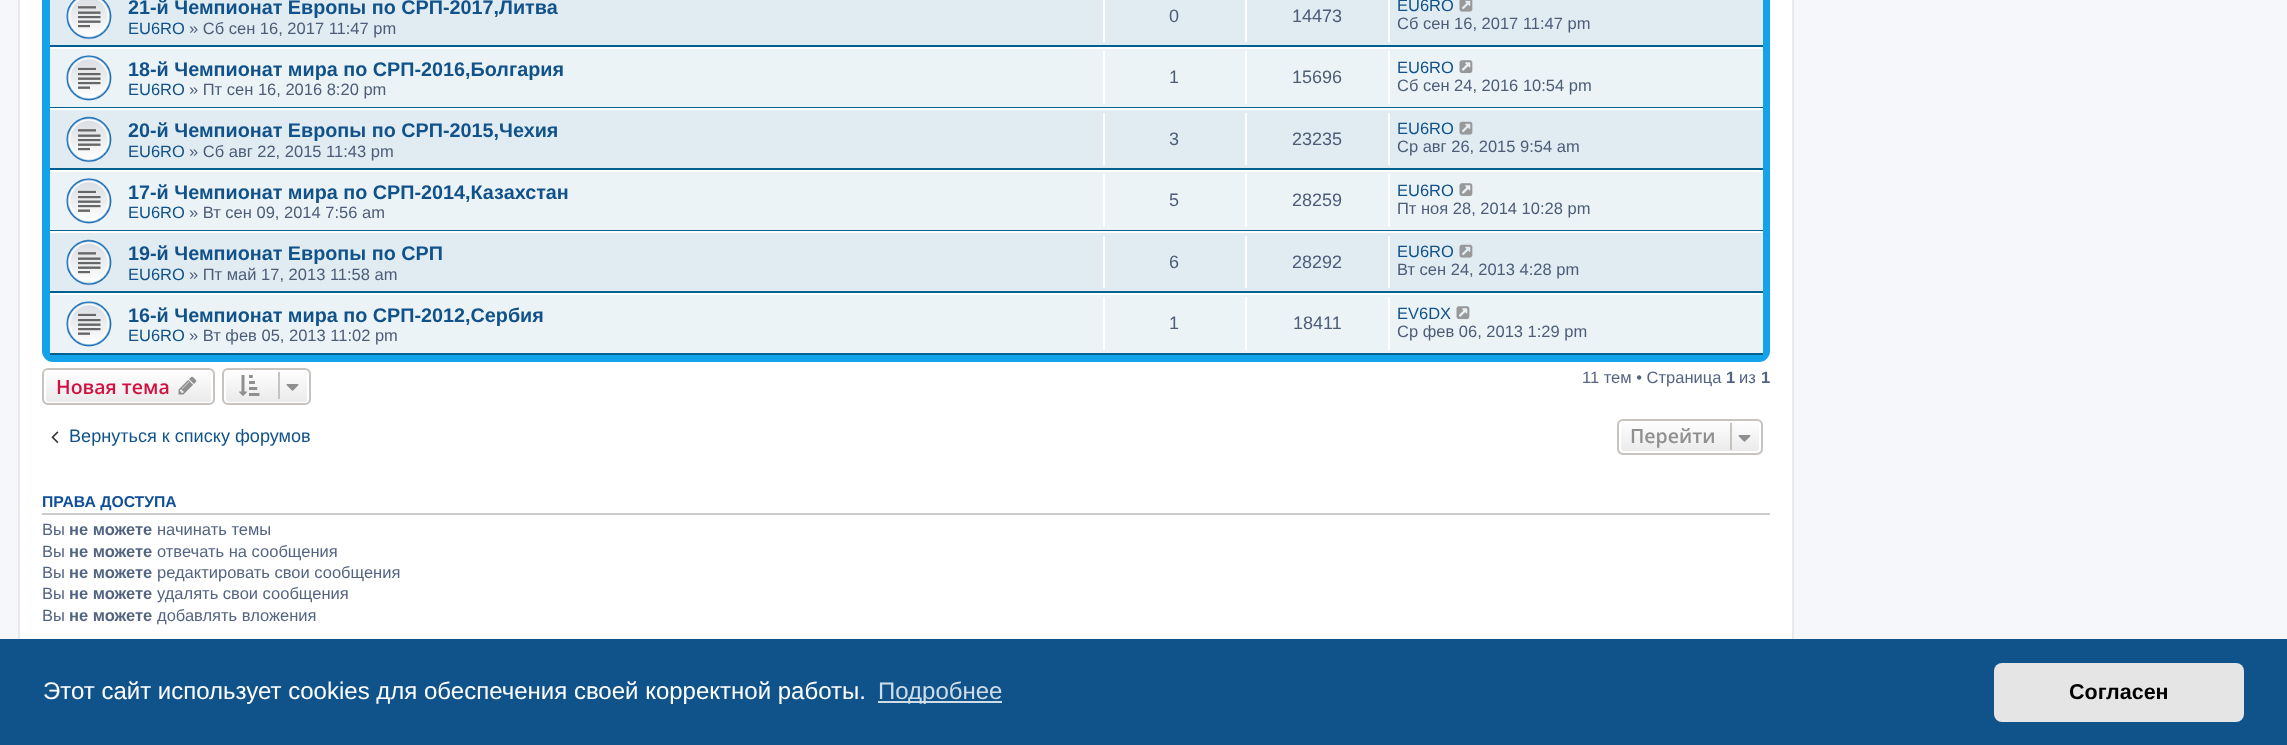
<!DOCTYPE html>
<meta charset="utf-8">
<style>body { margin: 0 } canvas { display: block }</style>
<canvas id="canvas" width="2287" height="745"></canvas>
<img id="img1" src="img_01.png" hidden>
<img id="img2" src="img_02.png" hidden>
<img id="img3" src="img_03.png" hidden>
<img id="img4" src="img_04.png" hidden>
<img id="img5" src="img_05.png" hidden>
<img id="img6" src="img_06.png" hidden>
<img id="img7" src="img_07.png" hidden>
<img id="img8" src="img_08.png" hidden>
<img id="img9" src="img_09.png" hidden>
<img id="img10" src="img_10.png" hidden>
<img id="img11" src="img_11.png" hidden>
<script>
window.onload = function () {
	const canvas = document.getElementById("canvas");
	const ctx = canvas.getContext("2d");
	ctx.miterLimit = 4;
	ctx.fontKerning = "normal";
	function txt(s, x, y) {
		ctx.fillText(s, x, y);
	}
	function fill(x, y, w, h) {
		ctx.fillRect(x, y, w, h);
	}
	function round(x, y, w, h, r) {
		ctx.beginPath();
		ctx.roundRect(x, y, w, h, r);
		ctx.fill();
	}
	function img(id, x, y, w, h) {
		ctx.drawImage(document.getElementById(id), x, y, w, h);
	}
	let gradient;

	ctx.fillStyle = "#F5F7FA";
	fill(0, 0, 2287, 745);
	ctx.fillStyle = "#FFFFFF";
	fill(20, 0, 1772, 639);
	ctx.strokeStyle = "#E6E9ED";
	ctx.lineWidth = 2;
	ctx.strokeRect(19, -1, 1774, 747);
	gradient = ctx.createLinearGradient(906, -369, 906, 362);
	gradient.addColorStop(0, "#6ACEFF");
	gradient.addColorStop(0, "#0076B1");
	gradient.addColorStop(0.19, "#12A3EB");
	gradient.addColorStop(1, "#12A3EB");
	ctx.fillStyle = gradient;
	round(42, -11, 1728, 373, 11);
	ctx.fillStyle = "#E1EBF2";
	fill(50, 0, 1713, 45);
	ctx.fillStyle = "#00608F";
	fill(50, 45, 1713, 2);
	img("img1", 66, 0, 46, 40);
	ctx.fillStyle = "#FFFFFF";
	fill(1103, 0, 2, 42);
	fill(1245, 0, 2, 42);
	fill(1388, 0, 2, 42);
	img("img2", 1459, 0, 14, 12);
	ctx.fillStyle = "#ECF3F7";
	fill(50, 49, 1713, 58);
	ctx.fillStyle = "#FFFFFF";
	fill(50, 47, 1713, 2);
	ctx.fillStyle = "#00608F";
	fill(50, 107, 1713, 1);
	img("img3", 66, 55, 46, 46);
	ctx.fillStyle = "#FFFFFF";
	fill(1103, 51, 2, 53);
	fill(1245, 51, 2, 53);
	fill(1388, 51, 2, 53);
	img("img4", 1459, 60, 14, 14);
	ctx.fillStyle = "#E1EBF2";
	fill(50, 110, 1713, 58);
	ctx.fillStyle = "#FFFFFF";
	fill(50, 108, 1713, 2);
	ctx.fillStyle = "#00608F";
	fill(50, 168, 1713, 2);
	img("img5", 66, 116, 46, 47);
	ctx.fillStyle = "#FFFFFF";
	fill(1103, 113, 2, 52);
	fill(1245, 113, 2, 52);
	fill(1388, 113, 2, 52);
	img("img6", 1459, 121, 14, 14);
	ctx.fillStyle = "#ECF3F7";
	fill(50, 172, 1713, 58);
	ctx.fillStyle = "#FFFFFF";
	fill(50, 170, 1713, 2);
	ctx.fillStyle = "#00608F";
	fill(50, 230, 1713, 1);
	img("img3", 66, 178, 46, 46);
	ctx.fillStyle = "#FFFFFF";
	fill(1103, 174, 2, 53);
	fill(1245, 174, 2, 53);
	fill(1388, 174, 2, 53);
	img("img4", 1459, 183, 14, 14);
	ctx.fillStyle = "#E1EBF2";
	fill(50, 233, 1713, 58);
	ctx.fillStyle = "#FFFFFF";
	fill(50, 231, 1713, 2);
	ctx.fillStyle = "#00608F";
	fill(50, 291, 1713, 2);
	img("img5", 66, 239, 46, 47);
	ctx.fillStyle = "#FFFFFF";
	fill(1103, 236, 2, 52);
	fill(1245, 236, 2, 52);
	fill(1388, 236, 2, 52);
	img("img6", 1459, 244, 14, 14);
	ctx.fillStyle = "#ECF3F7";
	fill(50, 295, 1713, 58);
	ctx.fillStyle = "#FFFFFF";
	fill(50, 293, 1713, 2);
	ctx.fillStyle = "#00608F";
	fill(50, 353, 1713, 2);
	img("img3", 66, 301, 46, 46);
	ctx.fillStyle = "#FFFFFF";
	fill(1103, 297, 2, 53);
	fill(1245, 297, 2, 53);
	fill(1388, 297, 2, 53);
	img("img4", 1456, 306, 14, 14);
	ctx.save();
	ctx.beginPath();
	ctx.roundRect(42, 368, 173, 37, 6);
	ctx.clip();
	gradient = ctx.createLinearGradient(128, 369, 128, 404);
	gradient.addColorStop(0, "#FFFFFF");
	gradient.addColorStop(1, "#E9E9E9");
	ctx.fillStyle = gradient;
	fill(42, 369, 173, 35);
	ctx.restore();
	ctx.beginPath();
	ctx.roundRect(45, 370, 167, 33, 4);
	ctx.strokeStyle = "#FFFFFF";
	ctx.stroke();
	ctx.beginPath();
	ctx.roundRect(43, 369, 171, 35, 5);
	ctx.strokeStyle = "#C7C3BF";
	ctx.stroke();
	img("img7", 178, 376, 19, 19);
	ctx.save();
	ctx.beginPath();
	ctx.roundRect(222, 368, 89, 37, 6);
	ctx.clip();
	gradient = ctx.createLinearGradient(266, 369, 266, 404);
	gradient.addColorStop(0, "#FFFFFF");
	gradient.addColorStop(1, "#E9E9E9");
	ctx.fillStyle = gradient;
	fill(222, 369, 89, 35);
	ctx.restore();
	ctx.beginPath();
	ctx.roundRect(225, 370, 83, 33, 4);
	ctx.strokeStyle = "#FFFFFF";
	ctx.stroke();
	ctx.beginPath();
	ctx.roundRect(223, 369, 87, 35, 5);
	ctx.strokeStyle = "#C7C3BF";
	ctx.stroke();
	img("img8", 239, 375, 21, 21);
	ctx.fillStyle = "#C7C3BF";
	fill(278, 372, 2, 27);
	img("img9", 286, 384, 13, 7);
	img("img10", 51, 431, 8, 12);
	ctx.save();
	ctx.beginPath();
	ctx.roundRect(1617, 419, 146, 36, 6);
	ctx.clip();
	gradient = ctx.createLinearGradient(1690, 420, 1690, 453);
	gradient.addColorStop(0, "#FFFFFF");
	gradient.addColorStop(1, "#E9E9E9");
	ctx.fillStyle = gradient;
	fill(1617, 420, 146, 33);
	ctx.restore();
	ctx.beginPath();
	ctx.roundRect(1620, 421, 140, 31, 4);
	ctx.strokeStyle = "#FFFFFF";
	ctx.stroke();
	ctx.beginPath();
	ctx.roundRect(1618, 420, 144, 34, 5);
	ctx.strokeStyle = "#C7C3BF";
	ctx.stroke();
	fill(1730, 423, 2, 27);
	img("img11", 1738, 435, 13, 7);
	ctx.fillStyle = "#CCCCCC";
	fill(42, 513, 1728, 2);
	ctx.fillStyle = "#0F538A";
	fill(0, 639, 2287, 106);
	ctx.fillStyle = "#CFDDE8";
	fill(878, 701, 124, 2);
	ctx.fillStyle = "#E5E5E5";
	round(1994, 663, 250, 59, 8);
	ctx.font = "bold 19.8px Liberation Sans";
	ctx.fillStyle = "#105289";
	txt("21-й Чемпионат Европы по СРП-2017,Литва", 128, 14);
	ctx.font = "16.5px Liberation Sans";
	txt("EU6RO", 128, 34);
	ctx.fillStyle = "#4C5D77";
	txt("» Сб сен 16, 2017 11:47 pm", 189, 34);
	ctx.font = "18px Liberation Sans";
	txt("0", 1169, 22);
	txt("14473", 1292, 22);
	ctx.font = "16.5px Liberation Sans";
	ctx.fillStyle = "#105289";
	txt("EU6RO", 1397, 11);
	ctx.fillStyle = "#4C5D77";
	txt("Сб сен 16, 2017 11:47 pm", 1397, 29);
	ctx.font = "bold 19.8px Liberation Sans";
	ctx.fillStyle = "#105289";
	txt("18-й Чемпионат мира по СРП-2016,Болгария", 128, 76);
	ctx.font = "16.5px Liberation Sans";
	txt("EU6RO", 128, 95);
	ctx.fillStyle = "#4C5D77";
	txt("» Пт сен 16, 2016 8:20 pm", 189, 95);
	ctx.font = "18px Liberation Sans";
	txt("1", 1169, 83);
	txt("15696", 1292, 83);
	ctx.font = "16.5px Liberation Sans";
	ctx.fillStyle = "#105289";
	txt("EU6RO", 1397, 73);
	ctx.fillStyle = "#4C5D77";
	txt("Сб сен 24, 2016 10:54 pm", 1397, 91);
	ctx.font = "bold 19.8px Liberation Sans";
	ctx.fillStyle = "#105289";
	txt("20-й Чемпионат Европы по СРП-2015,Чехия", 128, 137);
	ctx.font = "16.5px Liberation Sans";
	txt("EU6RO", 128, 157);
	ctx.fillStyle = "#4C5D77";
	txt("» Сб авг 22, 2015 11:43 pm", 189, 157);
	ctx.font = "18px Liberation Sans";
	txt("3", 1169, 145);
	txt("23235", 1292, 145);
	ctx.font = "16.5px Liberation Sans";
	ctx.fillStyle = "#105289";
	txt("EU6RO", 1397, 134);
	ctx.fillStyle = "#4C5D77";
	txt("Ср авг 26, 2015 9:54 am", 1397, 152);
	ctx.font = "bold 19.8px Liberation Sans";
	ctx.fillStyle = "#105289";
	txt("17-й Чемпионат мира по СРП-2014,Казахстан", 128, 199);
	ctx.font = "16.5px Liberation Sans";
	txt("EU6RO", 128, 218);
	ctx.fillStyle = "#4C5D77";
	txt("» Вт сен 09, 2014 7:56 am", 189, 218);
	ctx.font = "18px Liberation Sans";
	txt("5", 1169, 206);
	txt("28259", 1292, 206);
	ctx.font = "16.5px Liberation Sans";
	ctx.fillStyle = "#105289";
	txt("EU6RO", 1397, 196);
	ctx.fillStyle = "#4C5D77";
	txt("Пт ноя 28, 2014 10:28 pm", 1397, 214);
	ctx.font = "bold 19.8px Liberation Sans";
	ctx.fillStyle = "#105289";
	txt("19-й Чемпионат Европы по СРП", 128, 260);
	ctx.font = "16.5px Liberation Sans";
	txt("EU6RO", 128, 280);
	ctx.fillStyle = "#4C5D77";
	txt("» Пт май 17, 2013 11:58 am", 189, 280);
	ctx.font = "18px Liberation Sans";
	txt("6", 1169, 268);
	txt("28292", 1292, 268);
	ctx.font = "16.5px Liberation Sans";
	ctx.fillStyle = "#105289";
	txt("EU6RO", 1397, 257);
	ctx.fillStyle = "#4C5D77";
	txt("Вт сен 24, 2013 4:28 pm", 1397, 275);
	ctx.font = "bold 19.8px Liberation Sans";
	ctx.fillStyle = "#105289";
	txt("16-й Чемпионат мира по СРП-2012,Сербия", 128, 322);
	ctx.font = "16.5px Liberation Sans";
	txt("EU6RO", 128, 341);
	ctx.fillStyle = "#4C5D77";
	txt("» Вт фев 05, 2013 11:02 pm", 189, 341);
	ctx.font = "18px Liberation Sans";
	txt("1", 1169, 329);
	txt("18411", 1293, 329);
	ctx.font = "16.5px Liberation Sans";
	ctx.fillStyle = "#105289";
	txt("EV6DX", 1397, 319);
	ctx.fillStyle = "#4C5D77";
	txt("Ср фев 06, 2013 1:29 pm", 1397, 337);
	ctx.font = "600 19.5px Open Sans";
	ctx.fillStyle = "#D31141";
	txt("Новая тема", 56, 394);
	ctx.font = "16.5px Liberation Sans";
	ctx.fillStyle = "#536482";
	txt("11 тем • Страница", 1582, 383);
	ctx.font = "bold 16.5px Liberation Sans";
	txt("1", 1726, 383);
	ctx.font = "16.5px Liberation Sans";
	txt("из", 1739, 383);
	ctx.font = "bold 16.5px Liberation Sans";
	txt("1", 1761, 383);
	ctx.font = "18.1px Liberation Sans";
	ctx.fillStyle = "#105289";
	txt("Вернуться к списку форумов", 69, 442);
	ctx.font = "600 19.5px Open Sans";
	ctx.fillStyle = "#8F8F8F";
	txt("Перейти", 1630, 443);
	ctx.font = "bold 15.75px Liberation Sans";
	ctx.fillStyle = "#115098";
	txt("ПРАВА ДОСТУПА", 42, 507);
	ctx.font = "16.5px Liberation Sans";
	ctx.fillStyle = "#536482";
	txt("Вы", 42, 535);
	ctx.font = "bold 16.5px Liberation Sans";
	txt("не можете", 69, 535);
	ctx.font = "16.5px Liberation Sans";
	txt("начинать темы", 157, 535);
	txt("Вы", 42, 557);
	ctx.font = "bold 16.5px Liberation Sans";
	txt("не можете", 69, 557);
	ctx.font = "16.5px Liberation Sans";
	txt("отвечать на сообщения", 157, 557);
	txt("Вы", 42, 578);
	ctx.font = "bold 16.5px Liberation Sans";
	txt("не можете", 69, 578);
	ctx.font = "16.5px Liberation Sans";
	txt("редактировать свои сообщения", 157, 578);
	txt("Вы", 42, 599);
	ctx.font = "bold 16.5px Liberation Sans";
	txt("не можете", 69, 599);
	ctx.font = "16.5px Liberation Sans";
	txt("удалять свои сообщения", 157, 599);
	txt("Вы", 42, 621);
	ctx.font = "bold 16.5px Liberation Sans";
	txt("не можете", 69, 621);
	ctx.font = "16.5px Liberation Sans";
	txt("добавлять вложения", 157, 621);
	ctx.font = "24px Liberation Sans";
	ctx.fillStyle = "#FFFFFF";
	txt("Этот сайт использует cookies для обеспечения своей корректной работы.", 43, 699);
	ctx.fillStyle = "#CFDDE8";
	txt("Подробнее", 878, 699);
	ctx.font = "bold 21.5px Liberation Sans";
	ctx.fillStyle = "#000000";
	txt("Согласен", 2069, 699);
};
</script>
